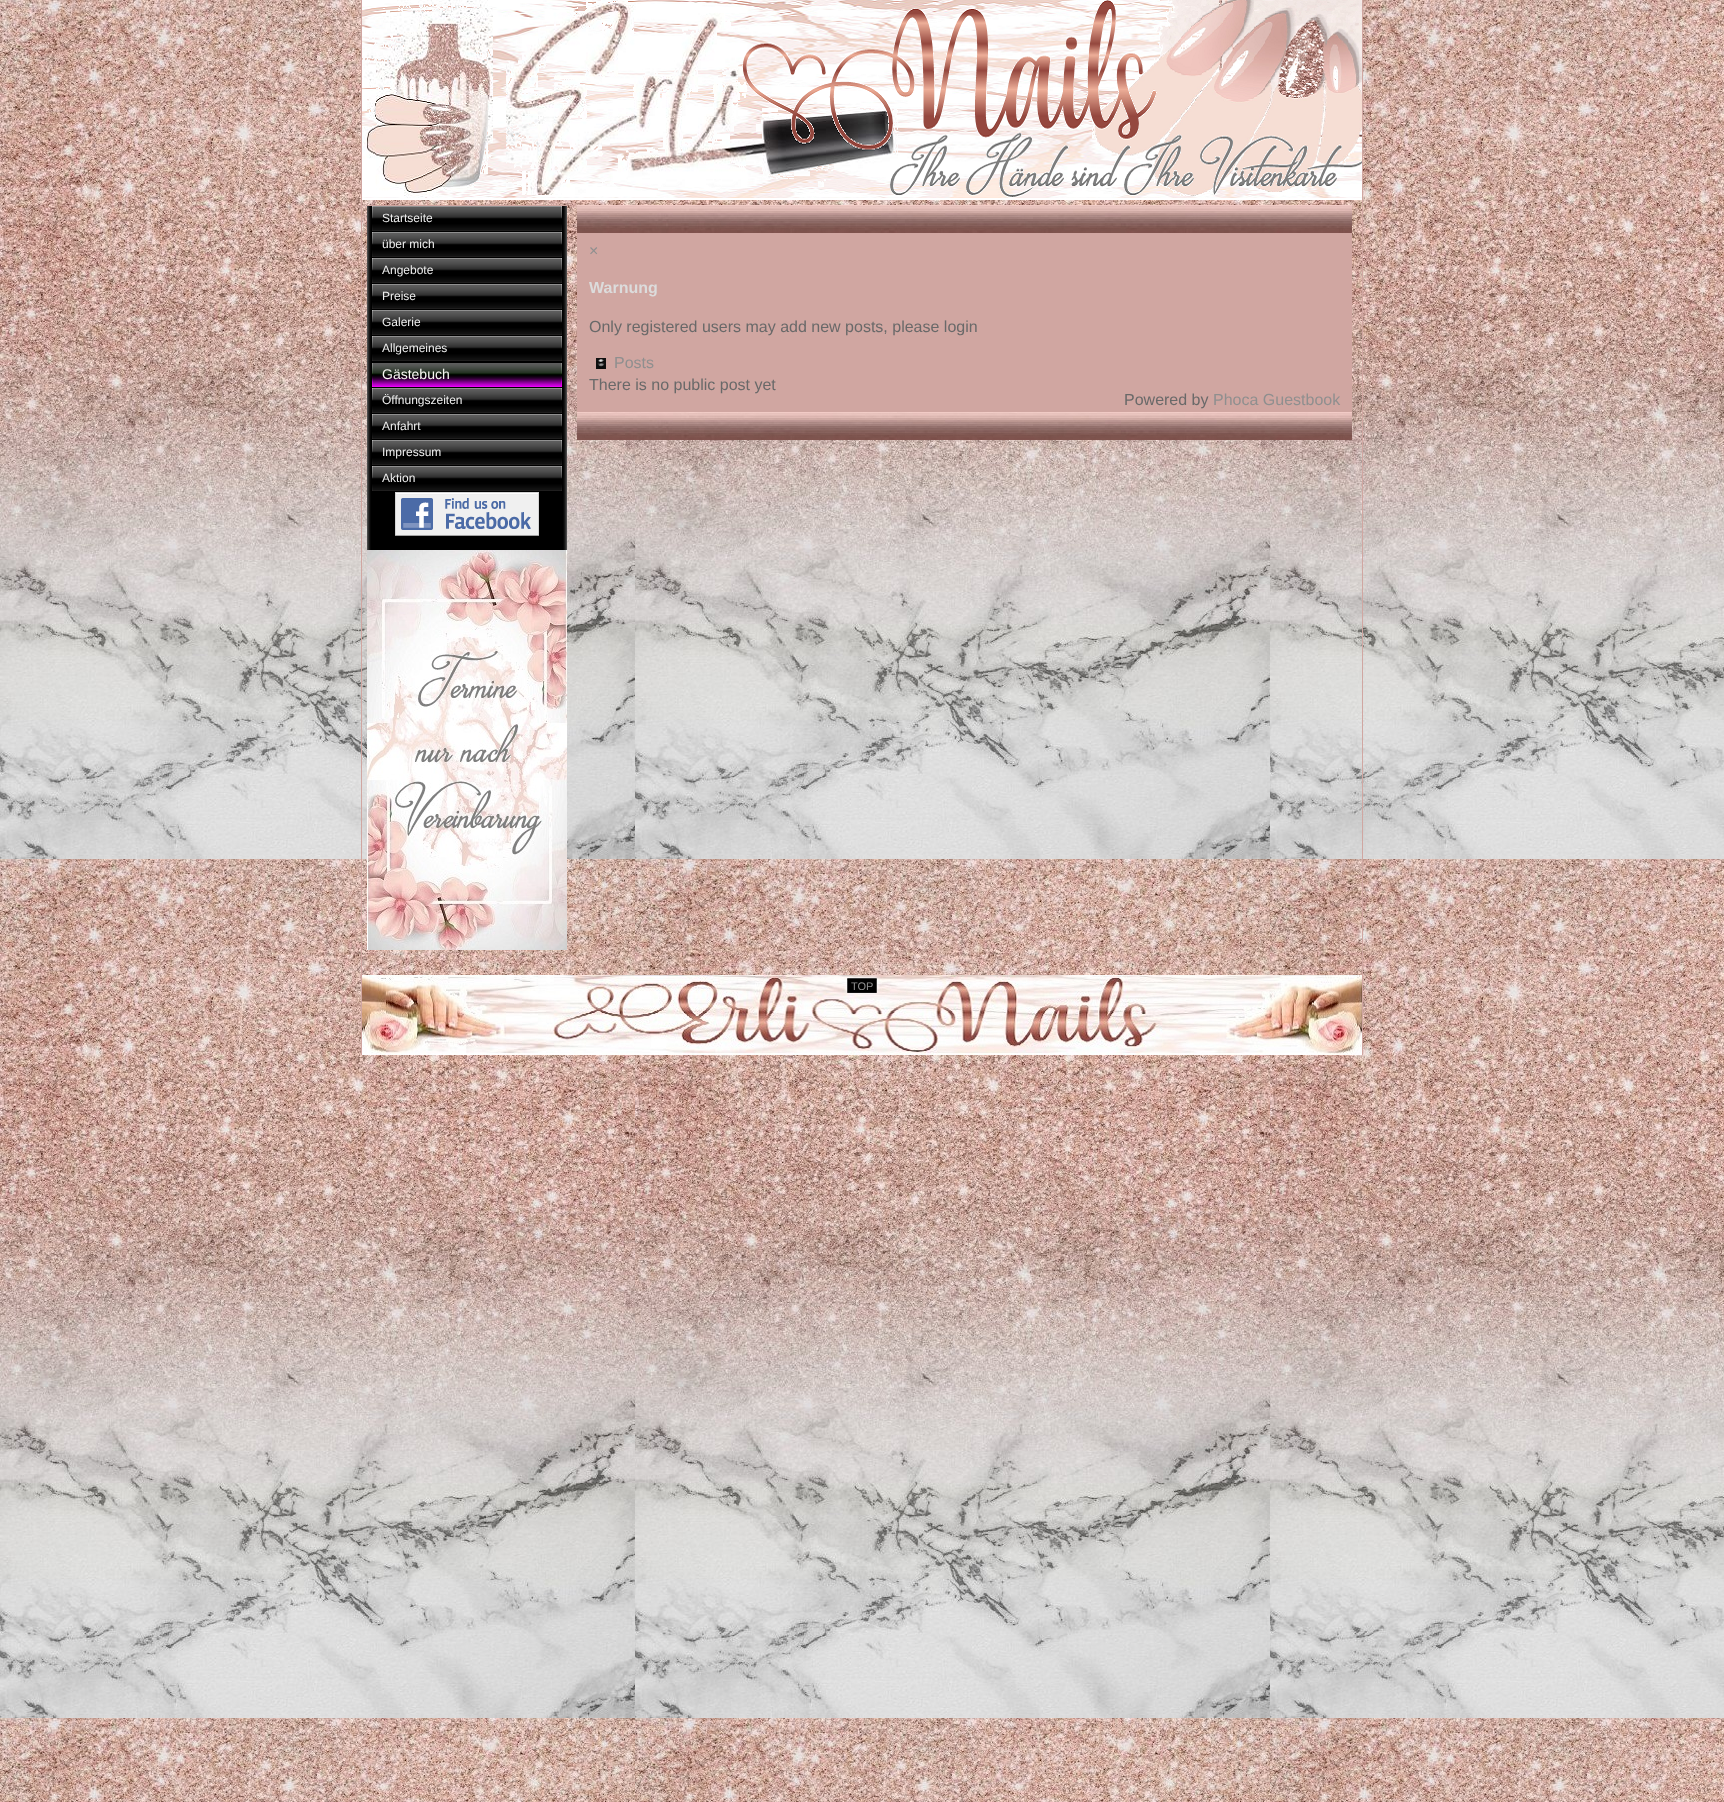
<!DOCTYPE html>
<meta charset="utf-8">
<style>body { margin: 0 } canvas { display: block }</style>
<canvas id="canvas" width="1724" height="1802"></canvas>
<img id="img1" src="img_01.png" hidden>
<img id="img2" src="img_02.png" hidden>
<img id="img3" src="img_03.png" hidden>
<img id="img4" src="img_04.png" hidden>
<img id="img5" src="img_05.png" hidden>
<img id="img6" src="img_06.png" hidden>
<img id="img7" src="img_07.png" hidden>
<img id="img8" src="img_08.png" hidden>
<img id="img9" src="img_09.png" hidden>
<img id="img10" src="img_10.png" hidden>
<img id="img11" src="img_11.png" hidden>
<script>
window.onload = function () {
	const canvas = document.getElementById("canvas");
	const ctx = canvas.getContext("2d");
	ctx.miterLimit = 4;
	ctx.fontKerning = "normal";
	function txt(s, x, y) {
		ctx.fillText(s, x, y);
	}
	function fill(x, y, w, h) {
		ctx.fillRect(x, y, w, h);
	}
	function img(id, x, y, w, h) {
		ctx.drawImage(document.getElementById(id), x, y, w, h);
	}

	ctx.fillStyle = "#FFFFFF";
	fill(0, 0, 1724, 1802);
	img("img1", 0, 0, 1724, 1802);
	ctx.fillStyle = "#D0A6A1";
	fill(1362, 0, 1, 1055);
	fill(361, 0, 1, 1055);
	img("img2", 362, 0, 1000, 200);
	img("img3", 367, 206, 200, 344);
	fill(367, 205, 200, 1);
	img("img4", 372, 206, 190, 25);
	img("img4", 372, 232, 190, 25);
	img("img4", 372, 258, 190, 25);
	img("img4", 372, 284, 190, 25);
	img("img4", 372, 310, 190, 25);
	img("img4", 372, 336, 190, 25);
	img("img5", 372, 363, 190, 24);
	img("img4", 372, 388, 190, 25);
	img("img4", 372, 414, 190, 25);
	img("img4", 372, 440, 190, 25);
	img("img4", 372, 466, 190, 25);
	img("img6", 395, 492, 144, 44);
	img("img7", 367, 550, 200, 400);
	img("img8", 577, 205, 775, 28);
	fill(577, 233, 775, 179);
	img("img9", 596, 358, 10, 11);
	img("img8", 577, 412, 775, 28);
	img("img10", 362, 975, 1000, 80);
	img("img11", 844, 975, 36, 20);
	ctx.font = "12px Liberation Sans";
	ctx.fillStyle = "#EFEFEF";
	txt("Startseite", 382, 222);
	txt("über mich", 382, 248);
	txt("Angebote", 382, 274);
	txt("Preise", 382, 300);
	txt("Galerie", 382, 326);
	txt("Allgemeines", 382, 352);
	ctx.font = "14px Liberation Sans";
	ctx.fillStyle = "#F8F8F3";
	txt("Gästebuch", 382, 379);
	ctx.font = "12px Liberation Sans";
	ctx.fillStyle = "#EFEFEF";
	txt("Öffnungszeiten", 382, 404);
	txt("Anfahrt", 382, 430);
	txt("Impressum", 382, 456);
	txt("Aktion", 382, 482);
	ctx.font = "16px Liberation Sans";
	ctx.fillStyle = "#8F8F8F";
	txt("×", 589, 256);
	ctx.font = "bold 16px Liberation Sans";
	ctx.fillStyle = "#DCDCDC";
	txt("Warnung", 589, 293);
	ctx.font = "16px Liberation Sans";
	ctx.fillStyle = "#696969";
	txt("Only registered users may add new posts, please login", 589, 332);
	ctx.fillStyle = "#8F8F8F";
	txt("Posts", 614, 368);
	ctx.fillStyle = "#696969";
	txt("There is no public post yet", 589, 390);
	txt("Powered by", 1124, 405);
	ctx.fillStyle = "#8F8F8F";
	txt("Phoca Guestbook", 1213, 405);
	ctx.font = "11px Liberation Sans";
	txt("TOP", 851, 990);
};
</script>
